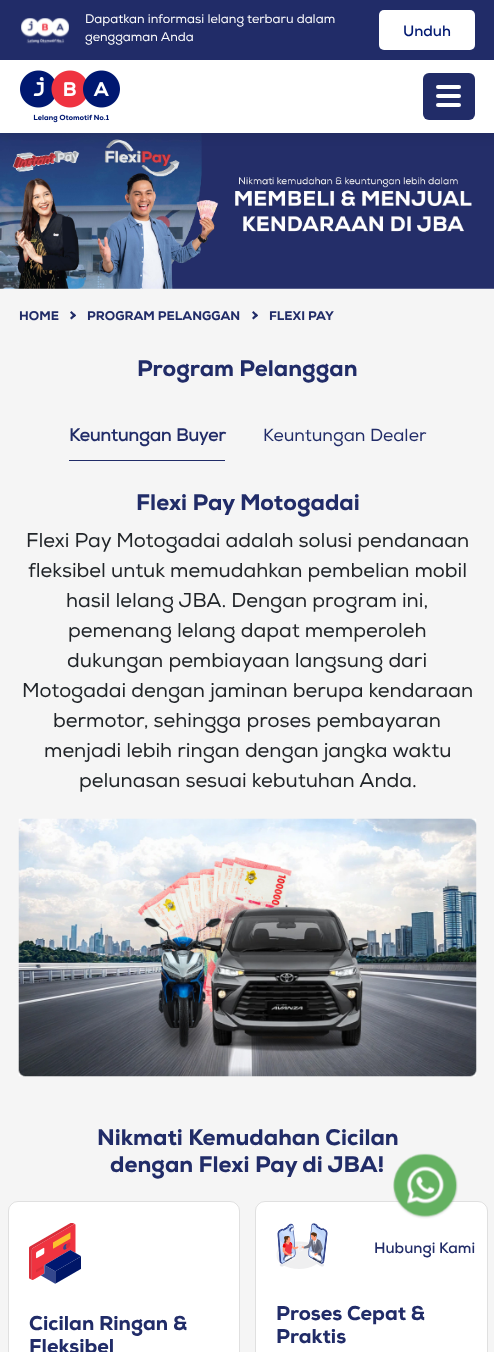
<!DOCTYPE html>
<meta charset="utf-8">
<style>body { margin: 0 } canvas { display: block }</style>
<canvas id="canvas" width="494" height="1352"></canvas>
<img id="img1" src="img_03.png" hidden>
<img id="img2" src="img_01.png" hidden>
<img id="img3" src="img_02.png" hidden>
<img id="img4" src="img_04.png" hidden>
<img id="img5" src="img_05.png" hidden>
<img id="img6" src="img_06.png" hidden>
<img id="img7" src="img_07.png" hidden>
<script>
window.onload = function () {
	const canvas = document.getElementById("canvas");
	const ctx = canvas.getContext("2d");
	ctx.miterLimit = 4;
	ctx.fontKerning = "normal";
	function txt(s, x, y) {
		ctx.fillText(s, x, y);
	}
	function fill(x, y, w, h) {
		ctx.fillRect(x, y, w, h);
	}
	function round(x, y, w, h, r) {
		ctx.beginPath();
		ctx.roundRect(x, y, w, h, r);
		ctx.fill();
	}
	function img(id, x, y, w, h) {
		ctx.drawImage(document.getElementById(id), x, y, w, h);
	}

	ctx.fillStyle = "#F5F5F5";
	fill(0, 0, 494, 1352);
	img("img1", 0, 133, 494, 156);
	ctx.fillStyle = "rgba(0, 0, 0, 0.1)";
	ctx.filter = "blur(6px)";
	ctx.beginPath();
	ctx.rect(0, 3, 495, 132);
	ctx.fill();
	ctx.filter = "none";
	ctx.fillStyle = "#FFFFFF";
	fill(0, 60, 494, 73);
	ctx.fillStyle = "#212C68";
	fill(0, 0, 494, 60);
	img("img2", 21, 18, 48, 26);
	ctx.fillStyle = "#FFFFFF";
	round(379, 10, 96, 40, 5);
	img("img3", 20, 70, 100, 53);
	ctx.fillStyle = "#212C68";
	round(423, 73, 52, 47, 6);
	ctx.fillStyle = "#FFFFFF";
	round(436, 94, 25, 4, 2);
	round(436, 85, 25, 4, 2);
	round(436, 103, 25, 4, 2);
	ctx.fillStyle = "#212C68";
	ctx.beginPath();
	ctx.moveTo(71.5, 311);
	ctx.lineTo(76, 315.5);
	ctx.lineTo(74.5, 317);
	ctx.lineTo(70, 312.5);
	ctx.closePath();
	ctx.fill();
	ctx.beginPath();
	ctx.moveTo(74.5, 313.5);
	ctx.lineTo(76, 315.5);
	ctx.lineTo(71.5, 319.5);
	ctx.lineTo(70, 318);
	ctx.closePath();
	ctx.fill();
	ctx.beginPath();
	ctx.moveTo(253.5, 311);
	ctx.lineTo(258, 315.5);
	ctx.lineTo(256.5, 317);
	ctx.lineTo(252, 312.5);
	ctx.closePath();
	ctx.fill();
	ctx.beginPath();
	ctx.moveTo(256.5, 313.5);
	ctx.lineTo(258, 315.5);
	ctx.lineTo(253.5, 319.5);
	ctx.lineTo(252, 318);
	ctx.closePath();
	ctx.fill();
	fill(69, 460, 156, 1);
	img("img4", 18, 818, 459, 259);
	ctx.fillStyle = "rgba(255, 255, 255, 0.92)";
	round(8, 1201, 232, 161, 10);
	ctx.beginPath();
	ctx.roundRect(8.5, 1201.5, 231, 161, 9.5);
	ctx.strokeStyle = "rgba(0, 0, 0, 0.12)";
	ctx.stroke();
	img("img5", 29, 1223, 52, 61);
	round(255, 1201, 233, 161, 10);
	ctx.beginPath();
	ctx.roundRect(255.5, 1201.5, 232, 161, 9.5);
	ctx.stroke();
	img("img6", 276, 1223, 52, 46);
	img("img7", 393, 1153, 65, 66);
	ctx.font = "12.5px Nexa";
	ctx.fillStyle = "#FFFFFF";
	txt("Dapatkan informasi lelang terbaru dalam", 85, 23);
	txt("genggaman Anda", 85, 41);
	ctx.font = "bold 15px 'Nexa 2'";
	ctx.fillStyle = "#001871";
	txt("Unduh", 403, 36);
	ctx.font = "900 12.5px Nexa";
	ctx.fillStyle = "#212C68";
	txt("HOME", 19, 320);
	txt("PROGRAM PELANGGAN", 87, 320);
	txt("FLEXI PAY", 269, 320);
	ctx.font = "900 22.5px Nexa";
	txt("Program Pelanggan", 137, 376);
	ctx.font = "bold 17.5px Nexa";
	txt("Keuntungan Buyer", 69, 441);
	ctx.font = "17.5px Nexa";
	txt("Keuntungan Dealer", 263, 441);
	ctx.font = "900 22.5px Nexa";
	txt("Flexi Pay Motogadai", 136, 510);
	ctx.font = "20px Nexa";
	ctx.fillStyle = "#212529";
	txt("Flexi Pay Motogadai adalah solusi pendanaan", 26, 547);
	txt("fleksibel untuk memudahkan pembelian mobil", 28, 577);
	txt("hasil lelang JBA. Dengan program ini,", 66, 607);
	txt("pemenang lelang dapat memperoleh", 68, 637);
	txt("dukungan pembiayaan langsung dari", 67, 667);
	txt("Motogadai dengan jaminan berupa kendaraan", 22, 697);
	txt("bermotor, sehingga proses pembayaran", 53, 727);
	txt("menjadi lebih ringan dengan jangka waktu", 44, 757);
	txt("pelunasan sesuai kebutuhan Anda.", 79, 787);
	ctx.font = "900 22.5px Nexa";
	ctx.fillStyle = "#212C68";
	txt("Nikmati Kemudahan Cicilan", 97, 1145);
	txt("dengan Flexi Pay di JBA!", 110, 1172);
	ctx.font = "900 20px Nexa";
	txt("Cicilan Ringan &", 29, 1330);
	txt("Fleksibel", 29, 1353);
	txt("Proses Cepat &", 276, 1320);
	txt("Praktis", 276, 1343);
	ctx.font = "bold 15px 'Nexa 2'";
	txt("Hubungi Kami", 374, 1253);
};
</script>
